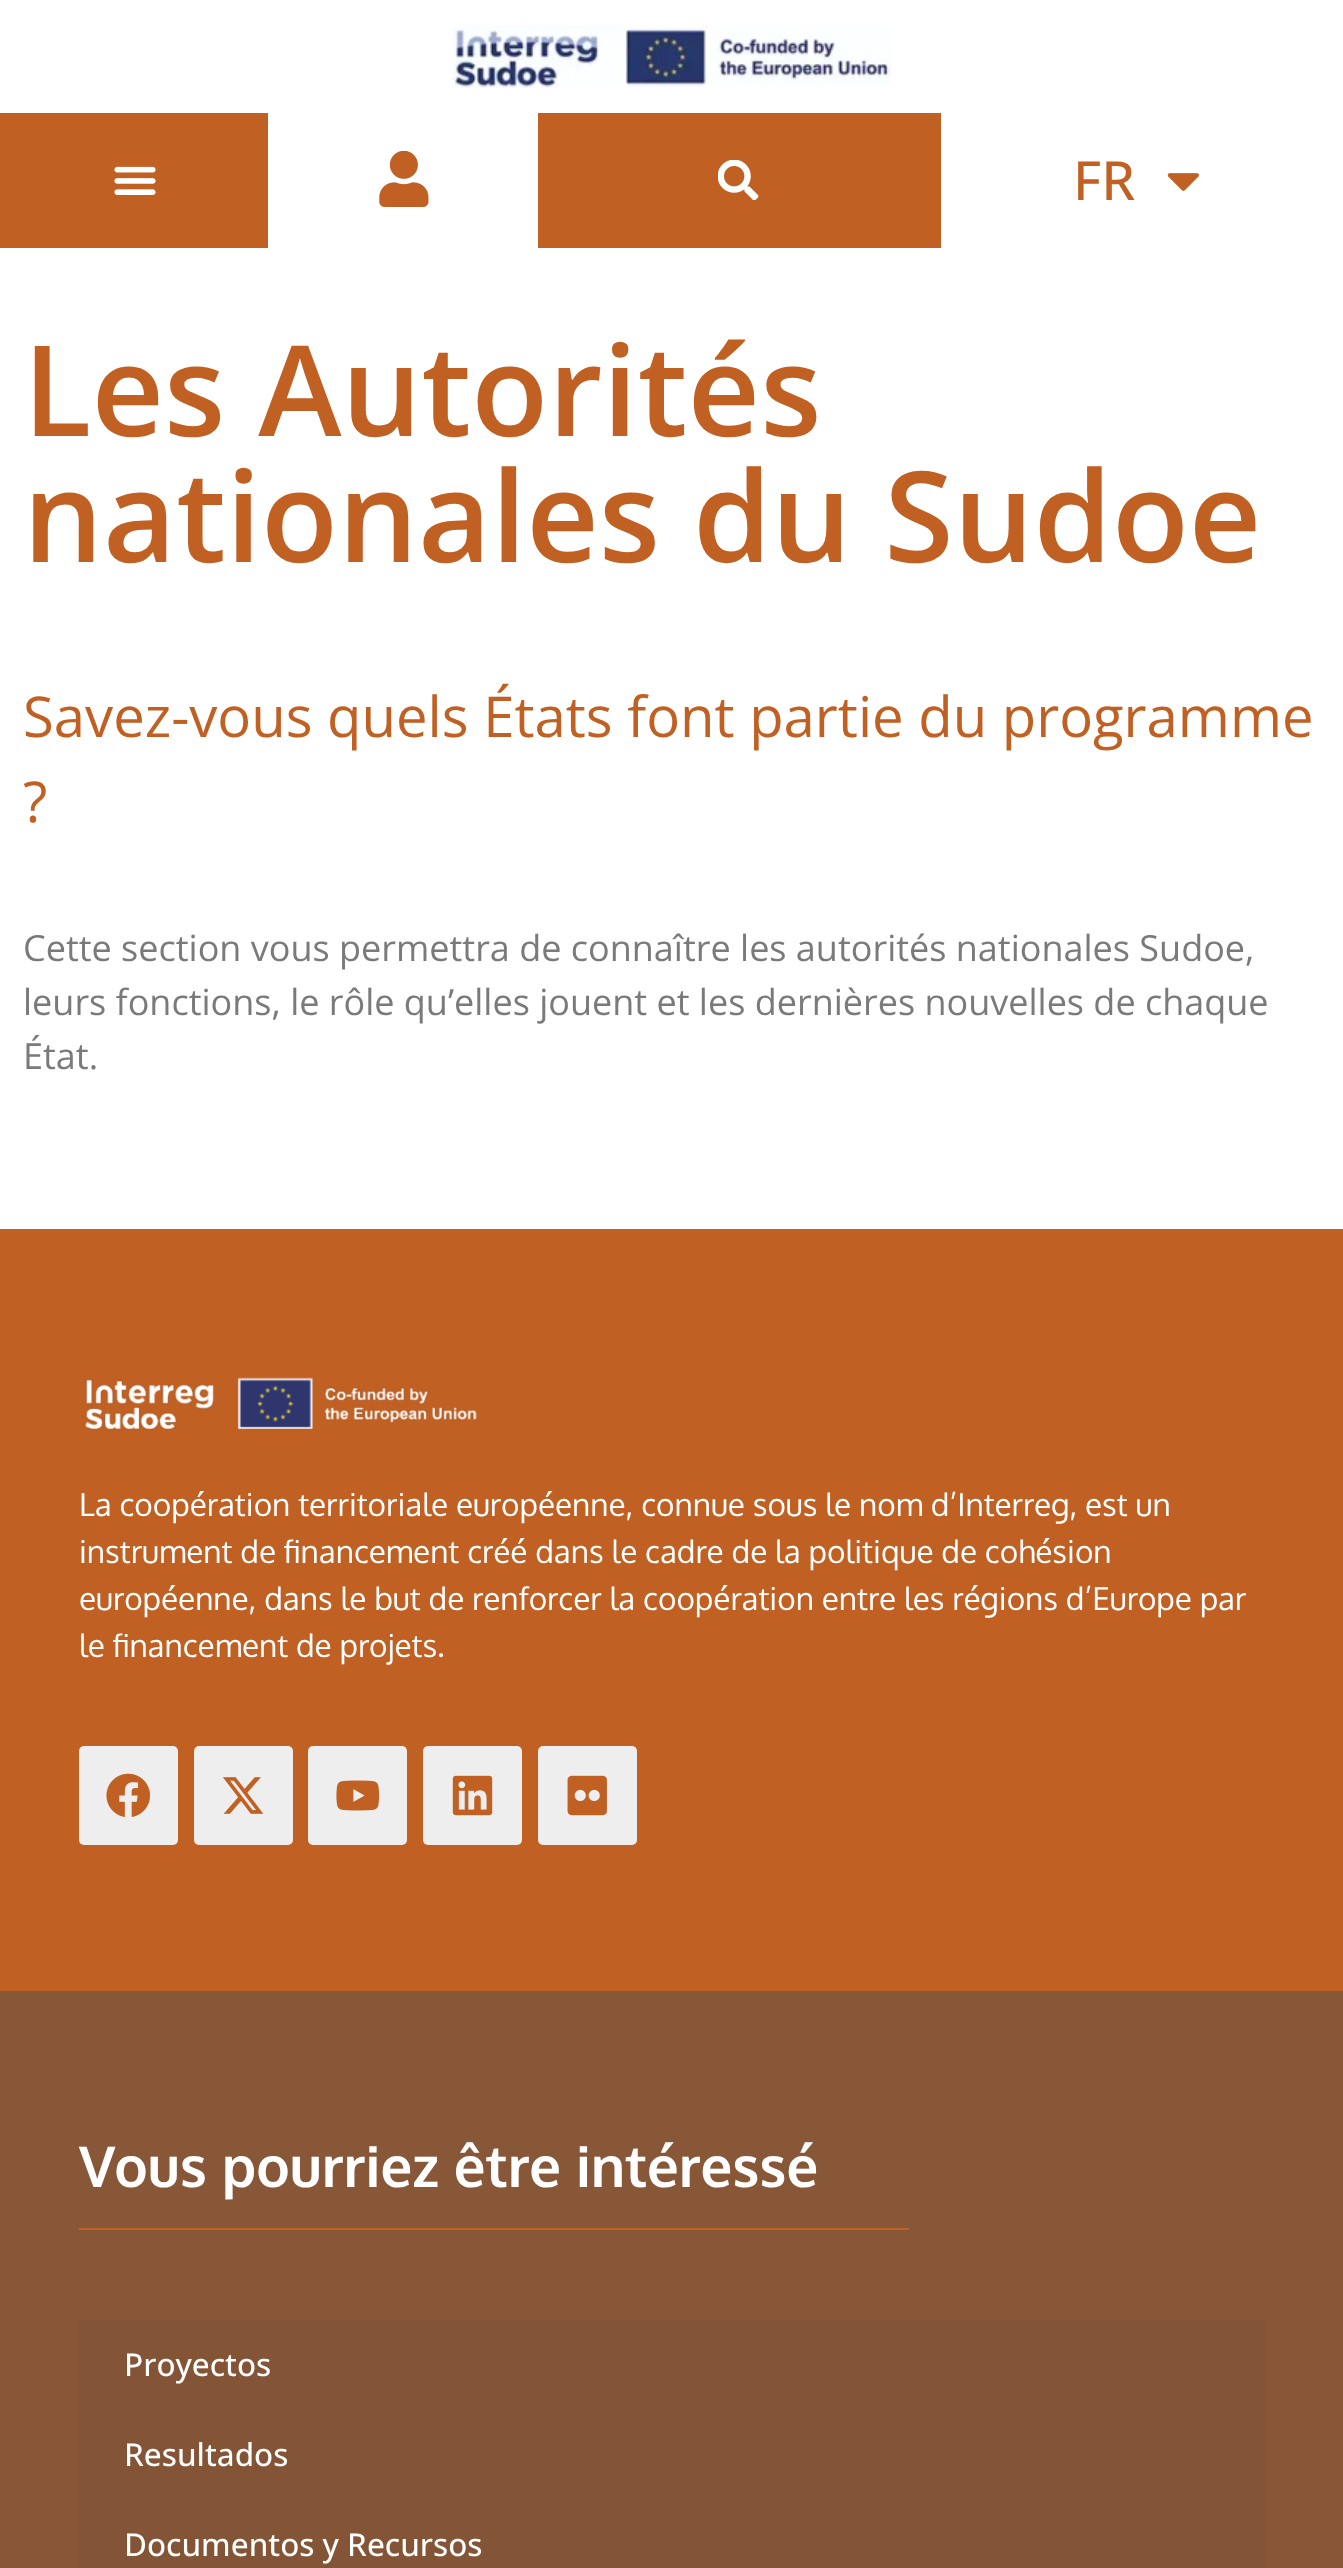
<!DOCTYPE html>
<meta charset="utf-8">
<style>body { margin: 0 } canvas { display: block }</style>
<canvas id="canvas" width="1343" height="2568"></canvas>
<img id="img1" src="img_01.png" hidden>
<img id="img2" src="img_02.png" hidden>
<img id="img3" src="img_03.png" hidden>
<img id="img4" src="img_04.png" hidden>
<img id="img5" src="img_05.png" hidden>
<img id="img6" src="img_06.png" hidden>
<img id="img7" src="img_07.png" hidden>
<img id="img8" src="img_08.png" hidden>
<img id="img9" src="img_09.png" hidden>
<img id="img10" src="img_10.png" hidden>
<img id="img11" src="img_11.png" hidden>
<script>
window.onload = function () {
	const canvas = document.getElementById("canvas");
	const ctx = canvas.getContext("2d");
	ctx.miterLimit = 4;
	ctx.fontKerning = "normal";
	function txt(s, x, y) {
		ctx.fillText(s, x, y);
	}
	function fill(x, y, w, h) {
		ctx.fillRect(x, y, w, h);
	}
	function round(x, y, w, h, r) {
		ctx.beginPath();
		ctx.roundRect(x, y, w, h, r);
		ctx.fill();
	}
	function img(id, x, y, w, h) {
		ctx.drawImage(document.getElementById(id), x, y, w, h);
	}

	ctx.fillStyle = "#FFFFFF";
	fill(0, 0, 1343, 2568);
	img("img1", 452, 25, 439, 63);
	ctx.fillStyle = "#C16023";
	fill(0, 113, 941, 135);
	img("img2", 114, 166, 42, 29);
	ctx.fillStyle = "#FFFFFF";
	fill(268, 113, 270, 135);
	img("img3", 379, 151, 50, 56);
	img("img4", 718, 160, 41, 40);
	img("img5", 1167, 173, 32, 18);
	ctx.fillStyle = "#C16023";
	fill(0, 1229, 1343, 762);
	img("img6", 84, 1377, 393, 53);
	ctx.fillStyle = "#EEEEEE";
	round(79, 1746, 99, 99, 5);
	img("img7", 106, 1773, 45, 44);
	round(194, 1746, 99, 99, 5);
	img("img8", 223, 1777, 41, 37);
	round(308, 1746, 99, 99, 5);
	img("img9", 336, 1780, 44, 31);
	round(423, 1746, 99, 99, 5);
	img("img10", 452, 1775, 41, 41);
	round(538, 1746, 99, 99, 5);
	img("img11", 567, 1775, 40, 41);
	ctx.fillStyle = "#875738";
	fill(0, 1991, 1343, 577);
	ctx.fillStyle = "#C16023";
	fill(79, 2228, 830, 2);
	ctx.fillStyle = "#835436";
	fill(79, 2320, 1186, 248);
	ctx.font = "500 54px Open Sans";
	ctx.fillStyle = "#C16023";
	txt("FR", 1073, 200);
	ctx.font = "600 126px Open Sans";
	txt("Les Autorités", 23, 436);
	txt("nationales du Sudoe", 23, 562);
	ctx.font = "56.25px Open Sans";
	txt("Savez-vous quels États font partie du programme", 23, 737);
	txt("?", 23, 822);
	ctx.font = "36px Open Sans";
	ctx.fillStyle = "#7A7A7A";
	txt("Cette section vous permettra de connaître les autorités nationales Sudoe,", 23, 961);
	txt("leurs fonctions, le rôle qu’elles jouent et les dernières nouvelles de chaque", 23, 1015);
	txt("État.", 23, 1069);
	ctx.font = "31.5px Oxygen";
	ctx.fillStyle = "#FFFFFF";
	txt("La coopération territoriale européenne, connue sous le nom d’Interreg, est un", 79, 1516);
	txt("instrument de financement créé dans le cadre de la politique de cohésion", 79, 1563);
	txt("européenne, dans le but de renforcer la coopération entre les régions d’Europe par", 79, 1610);
	txt("le financement de projets.", 79, 1657);
	ctx.font = "bold 56.25px Oxygen";
	txt("Vous pourriez être intéressé", 79, 2187);
	ctx.font = "500 31.5px Open Sans";
	txt("Proyectos", 124, 2376);
	txt("Resultados", 124, 2466);
	txt("Documentos y Recursos", 124, 2556);
};
</script>
